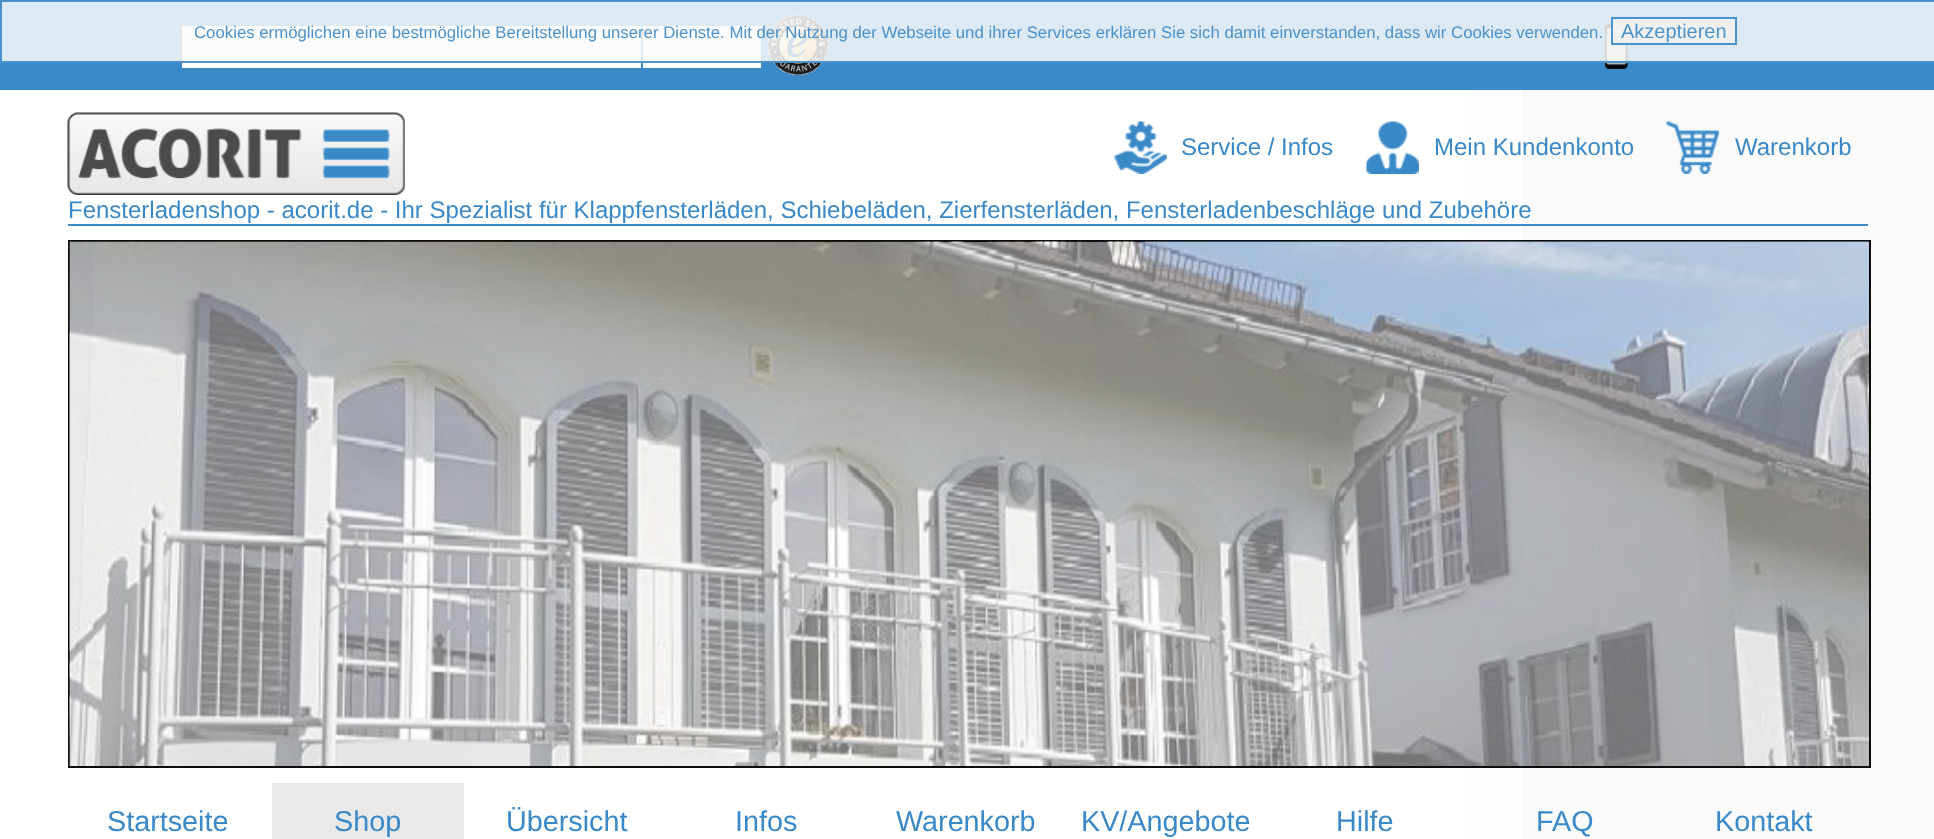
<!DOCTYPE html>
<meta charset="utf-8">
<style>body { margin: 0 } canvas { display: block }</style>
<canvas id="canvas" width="1934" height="839"></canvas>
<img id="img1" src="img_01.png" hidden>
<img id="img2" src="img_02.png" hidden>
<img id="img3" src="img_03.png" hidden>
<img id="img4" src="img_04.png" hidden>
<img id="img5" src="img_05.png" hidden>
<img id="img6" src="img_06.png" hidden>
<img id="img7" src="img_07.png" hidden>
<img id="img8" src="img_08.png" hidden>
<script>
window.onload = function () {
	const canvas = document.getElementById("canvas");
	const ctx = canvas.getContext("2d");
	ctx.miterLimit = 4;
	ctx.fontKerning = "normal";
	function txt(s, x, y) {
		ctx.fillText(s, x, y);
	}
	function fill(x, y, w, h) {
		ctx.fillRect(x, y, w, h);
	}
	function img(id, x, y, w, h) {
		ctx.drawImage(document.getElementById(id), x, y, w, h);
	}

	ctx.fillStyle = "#FAFAFA";
	fill(0, 0, 1934, 839);
	img("img1", 0, 0, 1522, 839);
	ctx.fillStyle = "rgba(47, 131, 197, 0.95)";
	fill(0, 0, 1934, 90);
	ctx.fillStyle = "#FFFFFF";
	fill(182, 26, 459, 42);
	fill(643, 26, 118, 42);
	img("img2", 768, 15, 60, 60);
	img("img3", 1605, 24, 23, 45);
	ctx.fillStyle = "rgba(250, 250, 250, 0.85)";
	fill(0, 0, 1934, 63);
	ctx.strokeStyle = "rgba(47, 131, 197, 0.85)";
	ctx.lineWidth = 2;
	ctx.strokeRect(1, 1, 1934, 61);
	ctx.fillStyle = "#F0F0F0";
	ctx.beginPath();
	ctx.rect(1612, 18, 124, 26);
	ctx.fill();
	ctx.strokeStyle = "#4C94CD";
	ctx.stroke();
	ctx.fillStyle = "rgba(47, 131, 197, 0.95)";
	fill(68, 224, 1800, 2);
	img("img4", 67, 112, 338, 83);
	img("img5", 1114, 121, 53, 53);
	img("img6", 1366, 121, 53, 53);
	img("img7", 1666, 121, 53, 53);
	ctx.fillStyle = "rgba(255, 255, 255, 0.95)";
	fill(1522, 242, 347, 524);
	ctx.strokeStyle = "#0D0D0D";
	ctx.strokeRect(69, 241, 1801, 526);
	img("img8", 69, 241, 1800, 525);
	ctx.fillStyle = "#E9E9E9";
	fill(272, 783, 192, 56);
	ctx.font = "16.8px Liberation Sans";
	ctx.fillStyle = "#4A93CC";
	txt("Cookies ermöglichen eine bestmögliche Bereitstellung unserer Dienste. Mit der Nutzung der Webseite und ihrer Services erklären Sie sich damit einverstanden, dass wir Cookies verwenden.", 194, 38);
	ctx.font = "20px Liberation Sans";
	txt("Akzeptieren", 1621, 38);
	ctx.font = "24px Liberation Sans";
	ctx.fillStyle = "#3989C8";
	txt("Service / Infos", 1181, 155);
	txt("Mein Kundenkonto", 1434, 155);
	txt("Warenkorb", 1735, 155);
	txt("Fensterladenshop - acorit.de - Ihr Spezialist für Klappfensterläden, Schiebeläden, Zierfensterläden, Fensterladenbeschläge und Zubehöre", 68, 218);
	ctx.font = "28.75px Liberation Sans";
	txt("Startseite", 107, 831);
	txt("Shop", 334, 831);
	txt("Übersicht", 506, 831);
	txt("Infos", 735, 831);
	txt("Warenkorb", 896, 831);
	txt("KV/Angebote", 1081, 831);
	txt("Hilfe", 1336, 831);
	txt("FAQ", 1536, 831);
	txt("Kontakt", 1715, 831);
};
</script>
